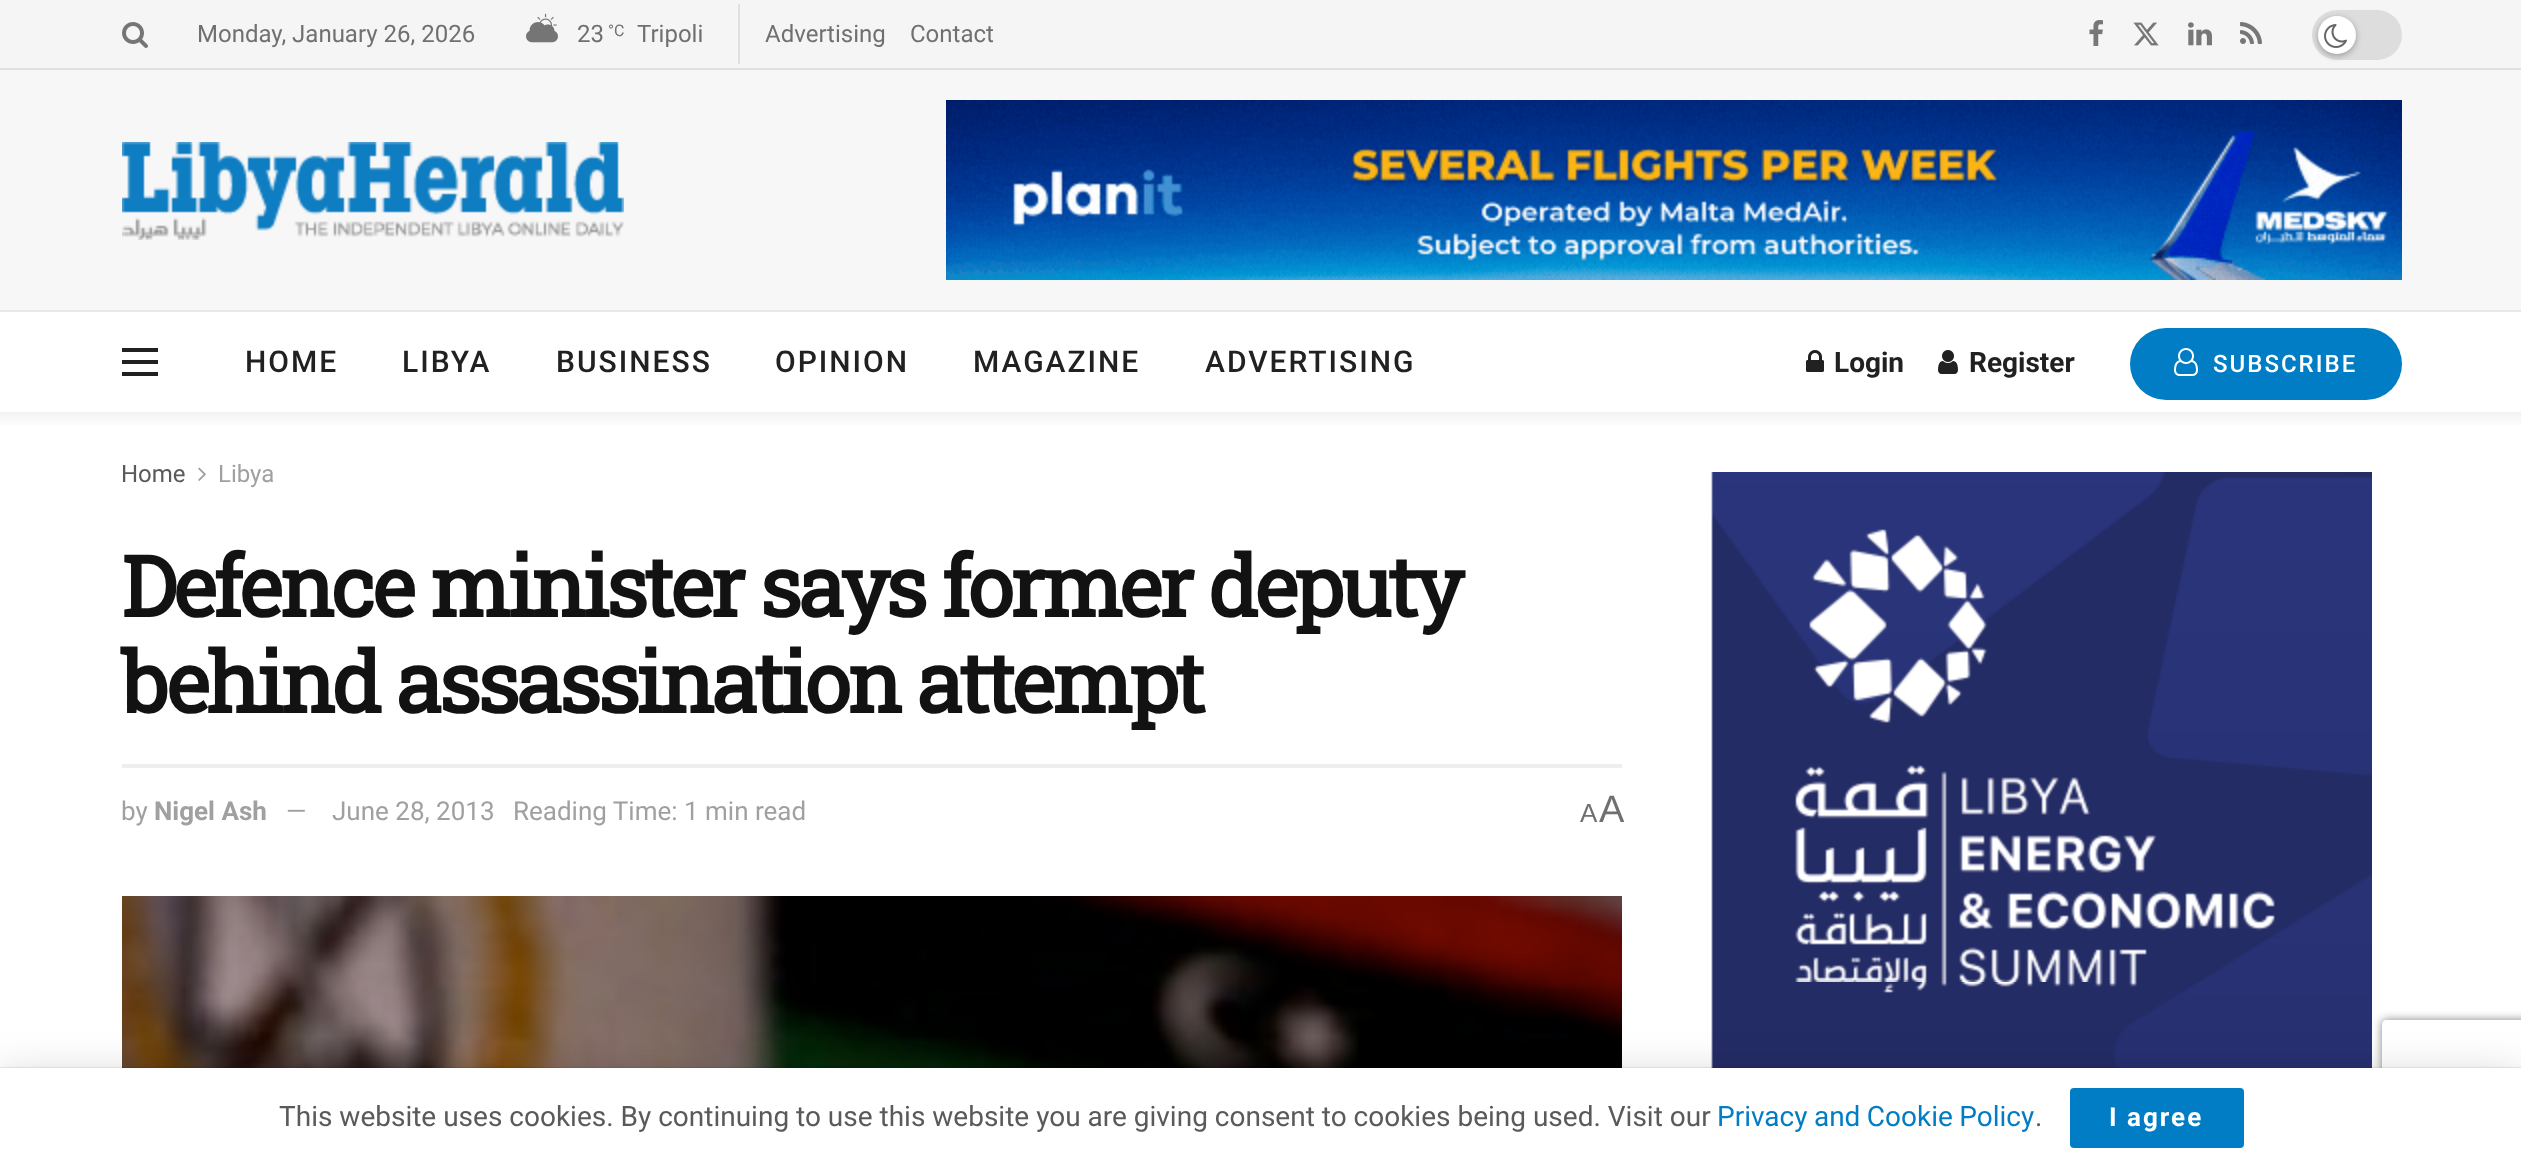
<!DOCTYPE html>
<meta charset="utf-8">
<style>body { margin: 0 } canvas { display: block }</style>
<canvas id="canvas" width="2521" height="1167"></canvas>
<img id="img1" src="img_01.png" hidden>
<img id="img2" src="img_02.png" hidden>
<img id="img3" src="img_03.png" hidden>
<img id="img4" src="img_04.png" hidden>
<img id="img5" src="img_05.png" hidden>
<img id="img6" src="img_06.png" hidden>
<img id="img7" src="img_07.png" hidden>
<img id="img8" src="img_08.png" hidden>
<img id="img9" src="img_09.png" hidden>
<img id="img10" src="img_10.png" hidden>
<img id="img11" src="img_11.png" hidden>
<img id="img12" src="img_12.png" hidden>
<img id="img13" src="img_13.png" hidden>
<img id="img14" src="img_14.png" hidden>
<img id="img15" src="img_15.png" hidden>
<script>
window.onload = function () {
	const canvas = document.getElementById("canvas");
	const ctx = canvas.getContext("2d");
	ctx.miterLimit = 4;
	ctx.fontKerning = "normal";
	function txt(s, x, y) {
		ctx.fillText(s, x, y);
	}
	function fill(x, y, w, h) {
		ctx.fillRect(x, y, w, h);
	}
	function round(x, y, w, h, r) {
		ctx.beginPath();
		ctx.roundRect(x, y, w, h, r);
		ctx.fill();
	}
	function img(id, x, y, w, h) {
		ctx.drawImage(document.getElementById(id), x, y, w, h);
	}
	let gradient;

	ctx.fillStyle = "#FFFFFF";
	fill(0, 0, 2521, 1167);
	ctx.fillStyle = "#F5F5F5";
	fill(0, 0, 2521, 68);
	ctx.fillStyle = "#E0E0E0";
	fill(0, 68, 2521, 2);
	img("img1", 122, 22, 26, 26);
	img("img2", 526, 13, 32, 30);
	fill(738, 4, 2, 60);
	img("img3", 2089, 20, 14, 26);
	img("img4", 2133, 22, 26, 24);
	img("img5", 2188, 22, 24, 24);
	img("img6", 2240, 22, 22, 22);
	ctx.fillStyle = "#DDDDDD";
	round(2312, 10, 90, 50, 25);
	ctx.fillStyle = "rgba(0, 0, 0, 0.3)";
	ctx.filter = "blur(3px)";
	ctx.beginPath();
	ctx.roundRect(2318, 18, 38, 38, 19);
	ctx.fill();
	ctx.filter = "none";
	ctx.fillStyle = "#FFFFFF";
	ctx.beginPath();
	ctx.arc(2337, 35, 19, 0, Math.PI * 2);
	ctx.fill();
	img("img7", 2324, 24, 23, 24);
	ctx.fillStyle = "#F7F7F7";
	fill(0, 70, 2521, 240);
	img("img8", 122, 142, 502, 98);
	img("img9", 946, 100, 1456, 180);
	ctx.fillStyle = "#E8E8E8";
	fill(0, 310, 2521, 2);
	ctx.fillStyle = "#212121";
	fill(122, 348, 36, 4);
	fill(122, 360, 36, 4);
	fill(122, 372, 36, 4);
	img("img10", 1806, 350, 18, 22);
	img("img11", 1938, 350, 20, 24);
	ctx.fillStyle = "#007DC5";
	round(2130, 328, 272, 72, 36);
	img("img12", 2174, 348, 24, 28);
	gradient = ctx.createLinearGradient(1261, 412, 1261, 428);
	gradient.addColorStop(0, "#F2F2F2");
	gradient.addColorStop(1, "#FFFFFF");
	ctx.fillStyle = gradient;
	fill(0, 412, 2521, 13);
	img("img13", 198, 467, 8, 14);
	ctx.fillStyle = "#EEEEEE";
	fill(122, 764, 1500, 4);
	img("img14", 122, 896, 1500, 172);
	img("img15", 1711, 472, 661, 596);
	ctx.fillStyle = "rgba(0, 0, 0, 0.15)";
	ctx.filter = "blur(20px)";
	ctx.beginPath();
	ctx.rect(0, 1072, 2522, 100);
	ctx.fill();
	ctx.filter = "none";
	ctx.fillStyle = "rgba(0, 0, 0, 0.2)";
	ctx.filter = "blur(1px)";
	ctx.beginPath();
	ctx.rect(0, 1068, 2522, 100);
	ctx.fill();
	ctx.filter = "none";
	ctx.save();
	ctx.beginPath();
	ctx.moveTo(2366, 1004);
	ctx.lineTo(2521, 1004);
	ctx.lineTo(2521, 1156);
	ctx.lineTo(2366, 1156);
	ctx.closePath();
	ctx.moveTo(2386, 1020);
	ctx.lineTo(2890, 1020);
	ctx.bezierCurveTo(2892, 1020, 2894, 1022, 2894, 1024);
	ctx.lineTo(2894, 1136);
	ctx.bezierCurveTo(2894, 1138, 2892, 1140, 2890, 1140);
	ctx.lineTo(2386, 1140);
	ctx.bezierCurveTo(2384, 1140, 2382, 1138, 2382, 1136);
	ctx.lineTo(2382, 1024);
	ctx.bezierCurveTo(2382, 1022, 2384, 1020, 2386, 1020);
	ctx.closePath();
	ctx.clip("evenodd");
	ctx.fillStyle = "#808080";
	ctx.filter = "blur(5px)";
	ctx.beginPath();
	ctx.roundRect(2382, 1020, 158, 120, 4);
	ctx.fill();
	ctx.filter = "none";
	ctx.restore();
	ctx.fillStyle = "#FFFFFF";
	fill(0, 1068, 2521, 99);
	ctx.fillStyle = "#007DC5";
	round(2070, 1088, 174, 60, 4);
	ctx.font = "24px Roboto";
	ctx.fillStyle = "#707070";
	txt("Monday, January 26, 2026", 197, 42);
	txt("23", 577, 42);
	ctx.font = "16px Roboto";
	txt("°C", 608, 36);
	ctx.font = "24px Roboto";
	txt("Tripoli", 637, 42);
	txt("Advertising", 765, 42);
	txt("Contact", 910, 42);
	ctx.letterSpacing = "2px";
	ctx.font = "500 30px Roboto";
	ctx.fillStyle = "#212121";
	txt("HOME", 245, 372);
	txt("LIBYA", 402, 372);
	txt("BUSINESS", 556, 372);
	txt("OPINION", 775, 372);
	txt("MAGAZINE", 973, 372);
	txt("ADVERTISING", 1205, 372);
	ctx.letterSpacing = "0px";
	ctx.font = "bold 28px Roboto";
	txt("Login", 1834, 372);
	txt("Register", 1969, 372);
	ctx.letterSpacing = "2px";
	ctx.font = "500 24px Roboto";
	ctx.fillStyle = "#FFFFFF";
	txt("SUBSCRIBE", 2213, 372);
	ctx.letterSpacing = "0px";
	ctx.font = "24px Roboto";
	ctx.fillStyle = "#5A5A5A";
	txt("Home", 121, 482);
	ctx.fillStyle = "#A0A0A0";
	txt("Libya", 218, 482);
	ctx.letterSpacing = "-3.35px";
	ctx.font = "bold 84px Roboto Slab";
	ctx.fillStyle = "#121212";
	txt("Defence minister says former deputy", 121, 617);
	txt("behind assassination attempt", 121, 713);
	ctx.letterSpacing = "0px";
	ctx.font = "26px Roboto";
	ctx.fillStyle = "#A0A0A0";
	txt("by", 121, 820);
	ctx.font = "bold 26px Roboto";
	txt("Nigel Ash", 154, 820);
	ctx.font = "26px Roboto";
	txt("—", 286, 820);
	txt("June 28, 2013", 332, 820);
	txt("Reading Time: 1 min read", 513, 820);
	ctx.font = "26px Liberation Sans";
	ctx.fillStyle = "#707070";
	txt("A", 1580, 822);
	ctx.font = "38px Liberation Sans";
	txt("A", 1599, 822);
	ctx.font = "28px Roboto";
	ctx.fillStyle = "#5A5A5A";
	txt("This website uses cookies. By continuing to use this website you are giving consent to cookies being used. Visit our", 279, 1126);
	ctx.wordSpacing = "-0.5px";
	ctx.fillStyle = "#007DC5";
	txt("Privacy and Cookie Policy", 1717, 1126);
	ctx.wordSpacing = "0px";
	ctx.fillStyle = "#5A5A5A";
	txt(".", 2035, 1126);
	ctx.letterSpacing = "2px";
	ctx.font = "bold 26px Roboto";
	ctx.fillStyle = "#FFFFFF";
	txt("I agree", 2109, 1126);
};
</script>
